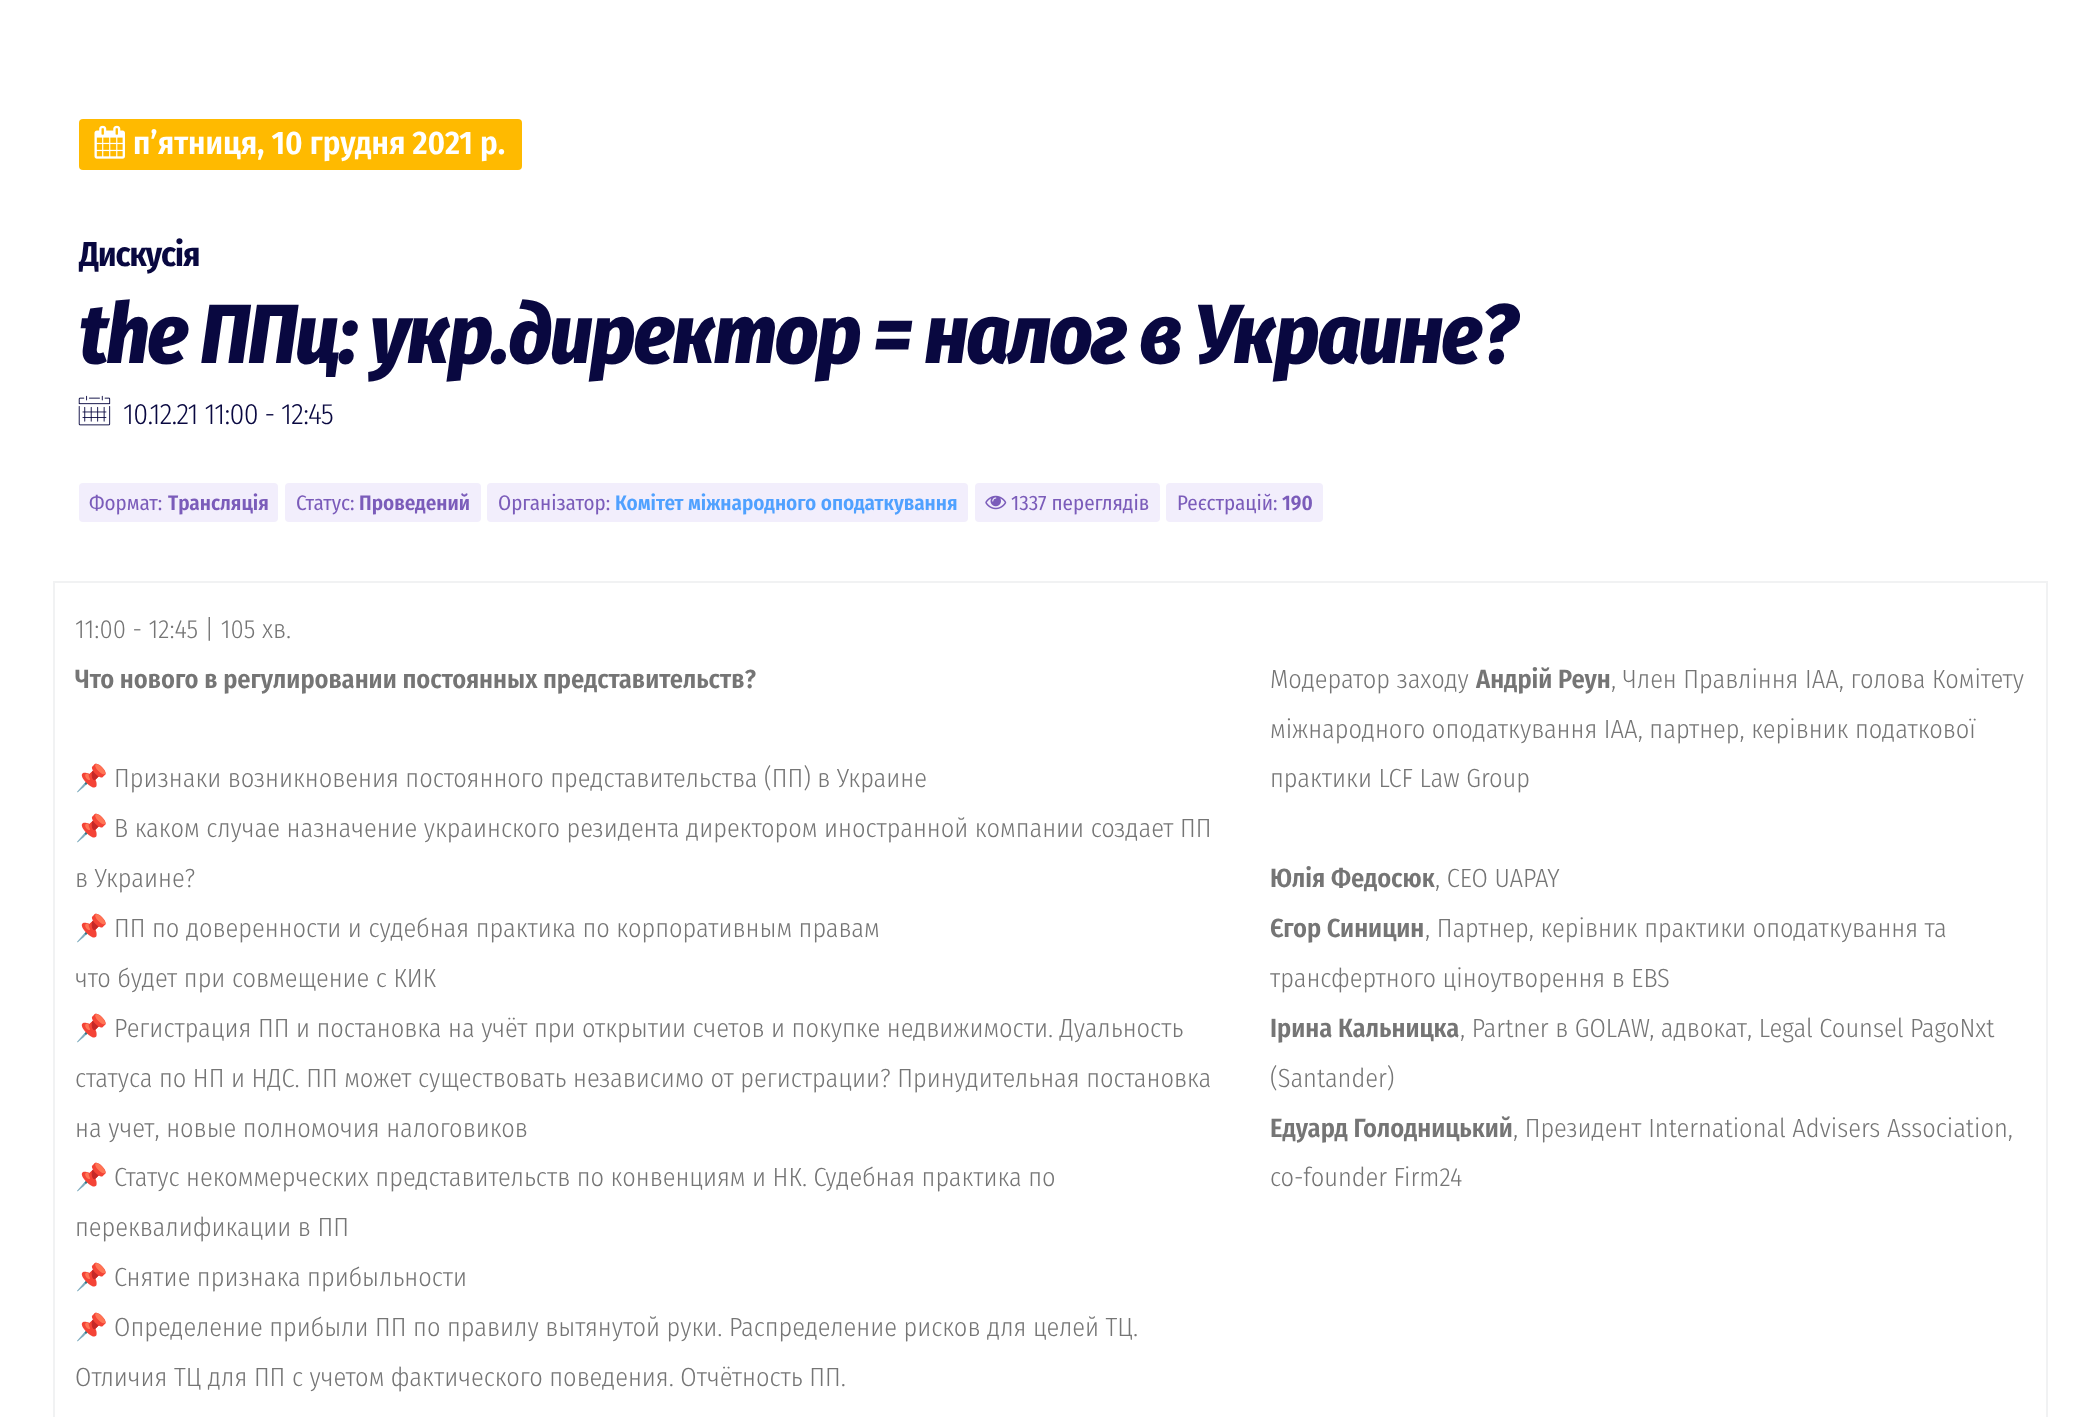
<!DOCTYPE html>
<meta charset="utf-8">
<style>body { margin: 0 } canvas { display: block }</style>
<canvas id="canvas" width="2100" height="1417"></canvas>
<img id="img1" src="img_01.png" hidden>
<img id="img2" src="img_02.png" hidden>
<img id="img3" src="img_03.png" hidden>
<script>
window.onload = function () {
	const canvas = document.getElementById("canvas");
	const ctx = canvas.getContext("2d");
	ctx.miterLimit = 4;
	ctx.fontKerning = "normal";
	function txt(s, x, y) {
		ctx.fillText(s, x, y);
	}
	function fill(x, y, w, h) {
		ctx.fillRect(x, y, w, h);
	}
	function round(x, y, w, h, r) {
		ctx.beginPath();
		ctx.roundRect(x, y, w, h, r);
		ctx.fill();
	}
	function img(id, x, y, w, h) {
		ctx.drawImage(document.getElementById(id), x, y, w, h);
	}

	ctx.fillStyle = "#FFFFFF";
	fill(0, 0, 2100, 1417);
	ctx.fillStyle = "#FFBA00";
	round(79, 119, 443, 51, 4);
	img("img1", 94, 125, 31, 34);
	img("img2", 78, 395, 33, 31);
	ctx.fillStyle = "#F2EEFC";
	round(79, 483, 199, 39, 4);
	round(285, 483, 196, 39, 4);
	round(487, 483, 481, 39, 4);
	round(975, 483, 185, 39, 4);
	img("img3", 985, 495, 22, 15);
	round(1166, 483, 157, 39, 4);
	ctx.fillStyle = "#F1F2F3";
	fill(53, 581, 1995, 2);
	fill(2046, 581, 2, 836);
	fill(53, 581, 2, 836);
	ctx.font = "600 32.75px Fira Sans Condensed";
	ctx.fillStyle = "#FFFFFF";
	txt("пʼятниця, 10 грудня 2021 р.", 133, 154);
	ctx.letterSpacing = "-1px";
	ctx.font = "bold 34.5px Fira Sans Condensed";
	ctx.fillStyle = "#090840";
	txt("Дискусія", 79, 266);
	ctx.letterSpacing = "-2.1px";
	ctx.font = "italic 800 84px Fira Sans Condensed";
	txt("the ППц: укр.директор = налог в Украине?", 79, 363);
	ctx.letterSpacing = "-0.75px";
	ctx.font = "300 29.5px Fira Sans Condensed";
	txt("10.12.21 11:00 - 12:45", 123, 424);
	ctx.letterSpacing = "0px";
	ctx.font = "21px Fira Sans Condensed";
	ctx.fillStyle = "#7B5CBA";
	txt("Формат:", 89, 510);
	ctx.font = "600 21px Fira Sans Condensed";
	txt("Трансляція", 168, 510);
	ctx.font = "21px Fira Sans Condensed";
	txt("Статус:", 296, 510);
	ctx.font = "600 21px Fira Sans Condensed";
	txt("Проведений", 359, 510);
	ctx.font = "21px Fira Sans Condensed";
	txt("Організатор:", 498, 510);
	ctx.font = "600 21px Fira Sans Condensed";
	ctx.fillStyle = "#50A1FF";
	txt("Комiтет міжнародного оподаткування", 615, 510);
	ctx.font = "21px Fira Sans Condensed";
	ctx.fillStyle = "#7B5CBA";
	txt("1337 переглядів", 1011, 510);
	txt("Реєстрацій:", 1177, 510);
	ctx.font = "600 21px Fira Sans Condensed";
	txt("190", 1282, 510);
	ctx.font = "300 26.25px Fira Sans Condensed";
	ctx.fillStyle = "#757575";
	txt("11:00 - 12:45 | 105 хв.", 75, 638);
	ctx.font = "600 26.25px Fira Sans Condensed";
	txt("Что нового в регулировании постоянных представительств?", 75, 688);
	ctx.font = "26.25px Noto Color Emoji";
	txt("📌", 75, 787);
	ctx.font = "300 26.25px Fira Sans Condensed";
	txt("Признаки возникновения постоянного представительства (ПП) в Украине", 114, 787);
	ctx.font = "26.25px Noto Color Emoji";
	txt("📌", 75, 837);
	ctx.font = "300 26.25px Fira Sans Condensed";
	txt("В каком случае назначение украинского резидента директором иностранной компании создает ПП", 114, 837);
	txt("в Украине?", 75, 887);
	ctx.font = "26.25px Noto Color Emoji";
	txt("📌", 75, 937);
	ctx.font = "300 26.25px Fira Sans Condensed";
	txt("ПП по доверенности и судебная практика по корпоративным правам", 114, 937);
	txt("что будет при совмещение с КИК", 75, 987);
	ctx.font = "26.25px Noto Color Emoji";
	txt("📌", 75, 1037);
	ctx.font = "300 26.25px Fira Sans Condensed";
	txt("Регистрация ПП и постановка на учёт при открытии счетов и покупке недвижимости. Дуальность", 114, 1037);
	txt("статуса по НП и НДС. ПП может существовать независимо от регистрации? Принудительная постановка", 75, 1087);
	txt("на учет, новые полномочия налоговиков", 75, 1137);
	ctx.font = "26.25px Noto Color Emoji";
	txt("📌", 75, 1186);
	ctx.font = "300 26.25px Fira Sans Condensed";
	txt("Статус некоммерческих представительств по конвенциям и НК. Судебная практика по", 114, 1186);
	txt("переквалификации в ПП", 75, 1236);
	ctx.font = "26.25px Noto Color Emoji";
	txt("📌", 75, 1286);
	ctx.font = "300 26.25px Fira Sans Condensed";
	txt("Снятие признака прибыльности", 114, 1286);
	ctx.font = "26.25px Noto Color Emoji";
	txt("📌", 75, 1336);
	ctx.font = "300 26.25px Fira Sans Condensed";
	txt("Определение прибыли ПП по правилу вытянутой руки. Распределение рисков для целей ТЦ.", 114, 1336);
	txt("Отличия ТЦ для ПП с учетом фактического поведения. Отчётность ПП.", 75, 1386);
	txt("Модератор заходу", 1270, 688);
	ctx.font = "600 26.25px Fira Sans Condensed";
	txt("Андрій Реун", 1476, 688);
	ctx.font = "300 26.25px Fira Sans Condensed";
	txt(", Член Правління IAA, голова Комітету", 1611, 688);
	txt("міжнародного оподаткування IAA, партнер, керівник податкової", 1270, 738);
	txt("практики LCF Law Group", 1270, 787);
	ctx.font = "600 26.25px Fira Sans Condensed";
	txt("Юлія Федосюк", 1270, 887);
	ctx.font = "300 26.25px Fira Sans Condensed";
	txt(", CEO UAPAY", 1435, 887);
	ctx.font = "600 26.25px Fira Sans Condensed";
	txt("Єгор Синицин", 1270, 937);
	ctx.font = "300 26.25px Fira Sans Condensed";
	txt(", Партнер, керівник практики оподаткування та", 1425, 937);
	txt("трансфертного ціноутворення в EBS", 1270, 987);
	ctx.font = "600 26.25px Fira Sans Condensed";
	txt("Ірина Кальницка", 1270, 1037);
	ctx.font = "300 26.25px Fira Sans Condensed";
	txt(", Partner в GOLAW, адвокат, Legal Counsel PagoNxt", 1460, 1037);
	txt("(Santander)", 1270, 1087);
	ctx.font = "600 26.25px Fira Sans Condensed";
	txt("Едуард Голодницький", 1270, 1137);
	ctx.font = "300 26.25px Fira Sans Condensed";
	txt(", Президент International Advisers Association,", 1513, 1137);
	txt("co-founder Firm24", 1270, 1186);
};
</script>
